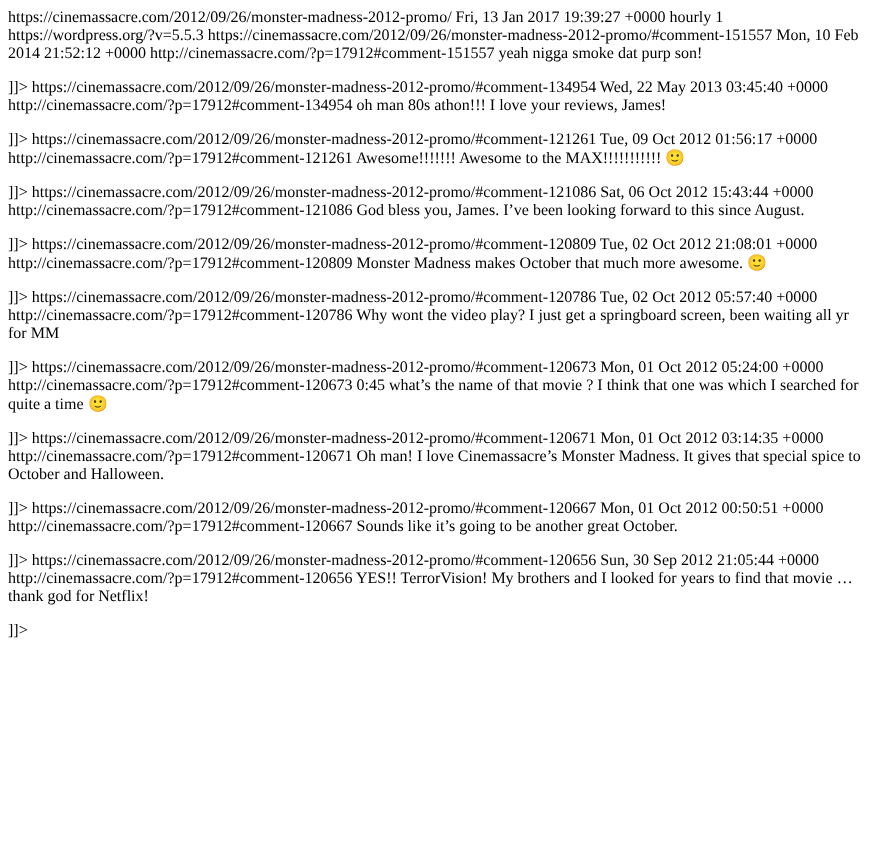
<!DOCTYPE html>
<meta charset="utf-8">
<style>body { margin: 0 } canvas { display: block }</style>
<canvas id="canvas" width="876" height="852"></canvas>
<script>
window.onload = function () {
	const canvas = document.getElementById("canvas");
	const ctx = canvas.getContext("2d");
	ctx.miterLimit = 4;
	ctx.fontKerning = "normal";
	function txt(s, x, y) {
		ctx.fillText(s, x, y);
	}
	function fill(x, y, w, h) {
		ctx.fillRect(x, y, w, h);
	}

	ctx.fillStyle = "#FFFFFF";
	fill(0, 0, 876, 852);
	ctx.font = "16px Liberation Serif";
	ctx.fillStyle = "#000000";
	txt("https://cinemassacre.com/2012/09/26/monster-madness-2012-promo/ Fri, 13 Jan 2017 19:39:27 +0000 hourly 1", 8, 22);
	txt("https://wordpress.org/?v=5.5.3 https://cinemassacre.com/2012/09/26/monster-madness-2012-promo/#comment-151557 Mon, 10 Feb", 8, 40);
	txt("2014 21:52:12 +0000 http://cinemassacre.com/?p=17912#comment-151557 yeah nigga smoke dat purp son!", 8, 58);
	txt("]]> https://cinemassacre.com/2012/09/26/monster-madness-2012-promo/#comment-134954 Wed, 22 May 2013 03:45:40 +0000", 8, 92);
	txt("http://cinemassacre.com/?p=17912#comment-134954 oh man 80s athon!!! I love your reviews, James!", 8, 110);
	txt("]]> https://cinemassacre.com/2012/09/26/monster-madness-2012-promo/#comment-121261 Tue, 09 Oct 2012 01:56:17 +0000", 8, 144);
	txt("http://cinemassacre.com/?p=17912#comment-121261", 8, 163);
	txt("Awesome!!!!!!! Awesome to the MAX!!!!!!!!!!!", 356, 163);
	ctx.font = "16px Noto Color Emoji";
	txt("🙂", 665, 163);
	ctx.font = "16px Liberation Serif";
	txt("]]> https://cinemassacre.com/2012/09/26/monster-madness-2012-promo/#comment-121086 Sat, 06 Oct 2012 15:43:44 +0000", 8, 197);
	txt("http://cinemassacre.com/?p=17912#comment-121086 God bless you, James. I’ve been looking forward to this since August.", 8, 215);
	txt("]]> https://cinemassacre.com/2012/09/26/monster-madness-2012-promo/#comment-120809 Tue, 02 Oct 2012 21:08:01 +0000", 8, 249);
	txt("http://cinemassacre.com/?p=17912#comment-120809 Monster Madness makes October that much more awesome.", 8, 268);
	ctx.font = "16px Noto Color Emoji";
	txt("🙂", 747, 268);
	ctx.font = "16px Liberation Serif";
	txt("]]> https://cinemassacre.com/2012/09/26/monster-madness-2012-promo/#comment-120786 Tue, 02 Oct 2012 05:57:40 +0000", 8, 302);
	txt("http://cinemassacre.com/?p=17912#comment-120786 Why wont the video play? I just get a springboard screen, been waiting all yr", 8, 320);
	txt("for MM", 8, 338);
	txt("]]> https://cinemassacre.com/2012/09/26/monster-madness-2012-promo/#comment-120673 Mon, 01 Oct 2012 05:24:00 +0000", 8, 372);
	txt("http://cinemassacre.com/?p=17912#comment-120673 0:45 what’s the name of that movie ? I think that one was which I searched for", 8, 390);
	txt("quite a time", 8, 409);
	ctx.font = "16px Noto Color Emoji";
	txt("🙂", 88, 409);
	ctx.font = "16px Liberation Serif";
	txt("]]> https://cinemassacre.com/2012/09/26/monster-madness-2012-promo/#comment-120671 Mon, 01 Oct 2012 03:14:35 +0000", 8, 443);
	txt("http://cinemassacre.com/?p=17912#comment-120671 Oh man! I love Cinemassacre’s Monster Madness. It gives that special spice to", 8, 461);
	txt("October and Halloween.", 8, 479);
	txt("]]> https://cinemassacre.com/2012/09/26/monster-madness-2012-promo/#comment-120667 Mon, 01 Oct 2012 00:50:51 +0000", 8, 513);
	txt("http://cinemassacre.com/?p=17912#comment-120667 Sounds like it’s going to be another great October.", 8, 531);
	txt("]]> https://cinemassacre.com/2012/09/26/monster-madness-2012-promo/#comment-120656 Sun, 30 Sep 2012 21:05:44 +0000", 8, 565);
	txt("http://cinemassacre.com/?p=17912#comment-120656", 8, 583);
	txt("YES!! TerrorVision! My brothers and I looked for years to find that movie …", 356, 583);
	txt("thank god for Netflix!", 8, 601);
	txt("]]>", 8, 635);
};
</script>
